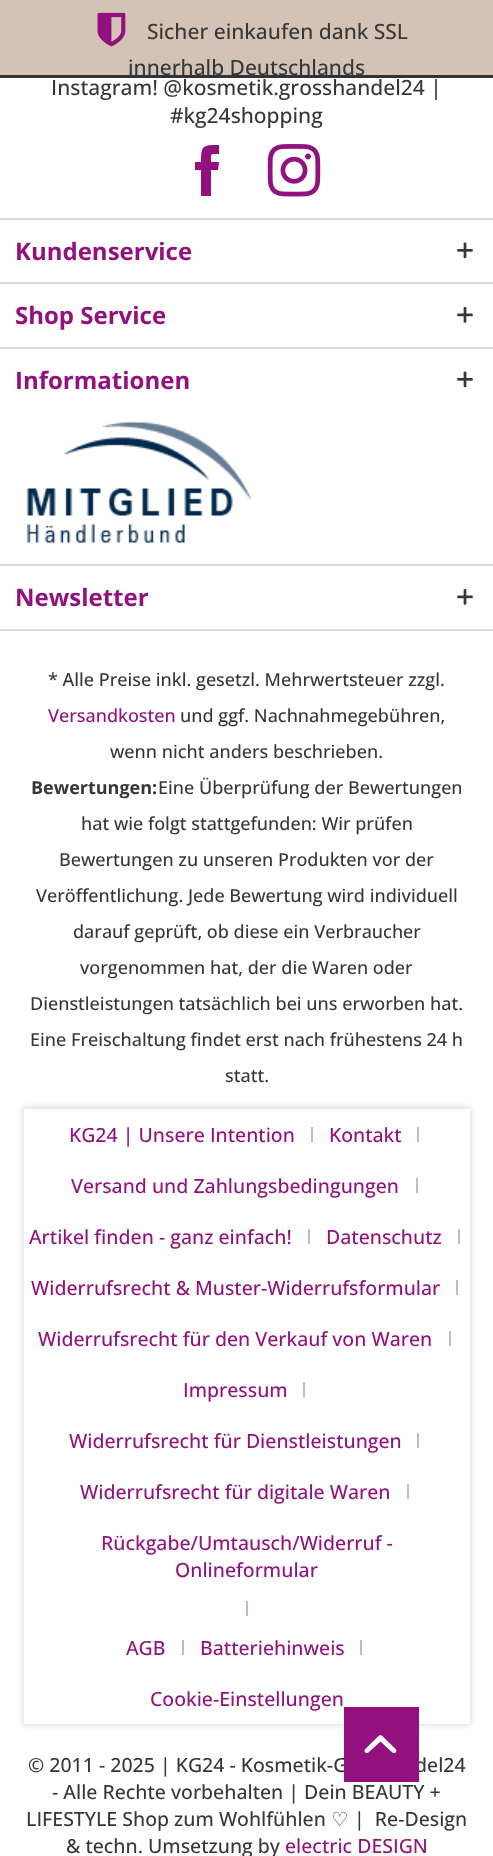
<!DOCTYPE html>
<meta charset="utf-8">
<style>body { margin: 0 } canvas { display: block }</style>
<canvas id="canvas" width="493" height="1856"></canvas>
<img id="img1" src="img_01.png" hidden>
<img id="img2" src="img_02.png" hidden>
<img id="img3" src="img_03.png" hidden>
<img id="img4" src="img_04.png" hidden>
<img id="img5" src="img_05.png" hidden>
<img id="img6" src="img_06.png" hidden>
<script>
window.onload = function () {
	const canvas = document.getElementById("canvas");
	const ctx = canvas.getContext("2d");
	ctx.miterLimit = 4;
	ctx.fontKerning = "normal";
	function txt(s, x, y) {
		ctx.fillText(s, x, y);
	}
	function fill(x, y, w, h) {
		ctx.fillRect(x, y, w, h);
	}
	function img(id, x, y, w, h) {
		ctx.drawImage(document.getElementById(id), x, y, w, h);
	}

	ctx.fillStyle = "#FFFFFF";
	fill(0, 0, 493, 1856);
	ctx.fillStyle = "#333333";
	fill(0, 75, 493, 3);
	ctx.fillStyle = "#D3C3B6";
	fill(0, 0, 493, 75);
	img("img1", 97, 12, 29, 35);
	ctx.fillStyle = "#93117E";
	ctx.beginPath();
	ctx.moveTo(201, 162);
	ctx.lineTo(195, 162);
	ctx.lineTo(195, 170);
	ctx.lineTo(201, 170);
	ctx.lineTo(201, 196);
	ctx.lineTo(211, 196);
	ctx.lineTo(211, 170);
	ctx.lineTo(218, 170);
	ctx.lineTo(219, 162);
	ctx.lineTo(211, 162);
	ctx.bezierCurveTo(211, 153, 210, 154, 219, 154);
	ctx.lineTo(219, 145);
	ctx.bezierCurveTo(203, 145, 201, 145, 201, 162);
	ctx.closePath();
	ctx.fill();
	img("img2", 267, 144, 54, 53);
	ctx.fillStyle = "#DADAE5";
	fill(0, 218, 493, 2);
	img("img3", 457, 242, 16, 17);
	fill(0, 282, 493, 2);
	img("img4", 457, 307, 16, 16);
	fill(0, 347, 493, 2);
	img("img3", 457, 371, 16, 17);
	img("img5", 26, 421, 225, 122);
	fill(0, 564, 493, 2);
	fill(0, 629, 493, 2);
	img("img4", 457, 589, 16, 16);
	ctx.filter = "blur(3px)";
	ctx.beginPath();
	ctx.rect(23, 1107, 448, 618);
	ctx.fill();
	ctx.filter = "none";
	ctx.fillStyle = "#FFFFFF";
	fill(24, 1109, 446, 615);
	ctx.fillStyle = "#BCBCD0";
	fill(311, 1127, 2, 15);
	fill(417, 1127, 2, 15);
	fill(416, 1178, 2, 15);
	fill(308, 1229, 2, 15);
	fill(458, 1229, 2, 15);
	fill(456, 1280, 2, 15);
	fill(449, 1331, 2, 15);
	fill(303, 1382, 2, 15);
	fill(417, 1433, 2, 15);
	fill(407, 1484, 2, 15);
	fill(246, 1601, 2, 15);
	fill(182, 1640, 2, 15);
	fill(360, 1640, 2, 15);
	ctx.font = "500 21px Open Sans";
	ctx.fillStyle = "#383636";
	txt("Sicher einkaufen dank SSL", 147, 39);
	ctx.save();
	ctx.beginPath();
	ctx.rect(0, 0, 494, 75);
	ctx.clip();
	txt("innerhalb Deutschlands", 128, 75);
	ctx.restore();
	txt("Instagram! @kosmetik.grosshandel24 |", 51, 95);
	txt("#kg24shopping", 170, 123);
	ctx.font = "bold 24px Open Sans";
	ctx.fillStyle = "#93117E";
	txt("Kundenservice", 15, 260);
	txt("Shop Service", 15, 324);
	txt("Informationen", 15, 389);
	txt("Newsletter", 15, 606);
	ctx.font = "500 18px Open Sans";
	ctx.fillStyle = "#383636";
	txt("* Alle Preise inkl. gesetzl. Mehrwertsteuer zzgl.", 48, 686);
	ctx.fillStyle = "#93117E";
	txt("Versandkosten", 48, 722);
	ctx.fillStyle = "#383636";
	txt("und ggf. Nachnahmegebühren,", 180, 722);
	txt("wenn nicht anders beschrieben.", 110, 758);
	ctx.font = "bold 18px Open Sans";
	txt("Bewertungen:", 31, 794);
	ctx.font = "500 18px Open Sans";
	txt("Eine Überprüfung der Bewertungen", 158, 794);
	txt("hat wie folgt stattgefunden: Wir prüfen", 81, 830);
	txt("Bewertungen zu unseren Produkten vor der", 59, 866);
	txt("Veröffentlichung. Jede Bewertung wird individuell", 36, 902);
	txt("darauf geprüft, ob diese ein Verbraucher", 73, 938);
	txt("vorgenommen hat, der die Waren oder", 80, 974);
	txt("Dienstleistungen tatsächlich bei uns erworben hat.", 30, 1010);
	txt("Eine Freischaltung findet erst nach frühestens 24 h", 30, 1046);
	txt("statt.", 225, 1082);
	ctx.font = "500 19.5px Open Sans";
	ctx.fillStyle = "#93117E";
	txt("KG24 | Unsere Intention", 69, 1142);
	txt("Kontakt", 329, 1142);
	txt("Versand und Zahlungsbedingungen", 71, 1193);
	txt("Artikel finden - ganz einfach!", 29, 1244);
	txt("Datenschutz", 326, 1244);
	txt("Widerrufsrecht & Muster-Widerrufsformular", 31, 1295);
	txt("Widerrufsrecht für den Verkauf von Waren", 38, 1346);
	txt("Impressum", 183, 1397);
	txt("Widerrufsrecht für Dienstleistungen", 69, 1448);
	txt("Widerrufsrecht für digitale Waren", 80, 1499);
	txt("Rückgabe/Umtausch/Widerruf -", 101, 1550);
	txt("Onlineformular", 175, 1577);
	txt("AGB", 126, 1655);
	txt("Batteriehinweis", 200, 1655);
	txt("Cookie-Einstellungen", 150, 1706);
	ctx.fillStyle = "#383636";
	txt("© 2011 - 2025 | KG24 - Kosmetik-G", 28, 1772);
	txt("del24", 415, 1772);
	txt("- Alle Rechte vorbehalten | Dein BEAUTY +", 52, 1799);
	txt("LIFESTYLE Shop zum Wohlfühlen", 26, 1826);
	ctx.font = "19.5px DejaVu Sans";
	txt("♡", 331, 1826);
	ctx.font = "500 19.5px Open Sans";
	txt("|  Re-Design", 354, 1826);
	txt("& techn. Umsetzung by", 66, 1853);
	ctx.fillStyle = "#93117E";
	txt("electric DESIGN", 285, 1853);
	fill(344, 1707, 75, 75);
	img("img6", 364, 1735, 33, 19);
};
</script>
